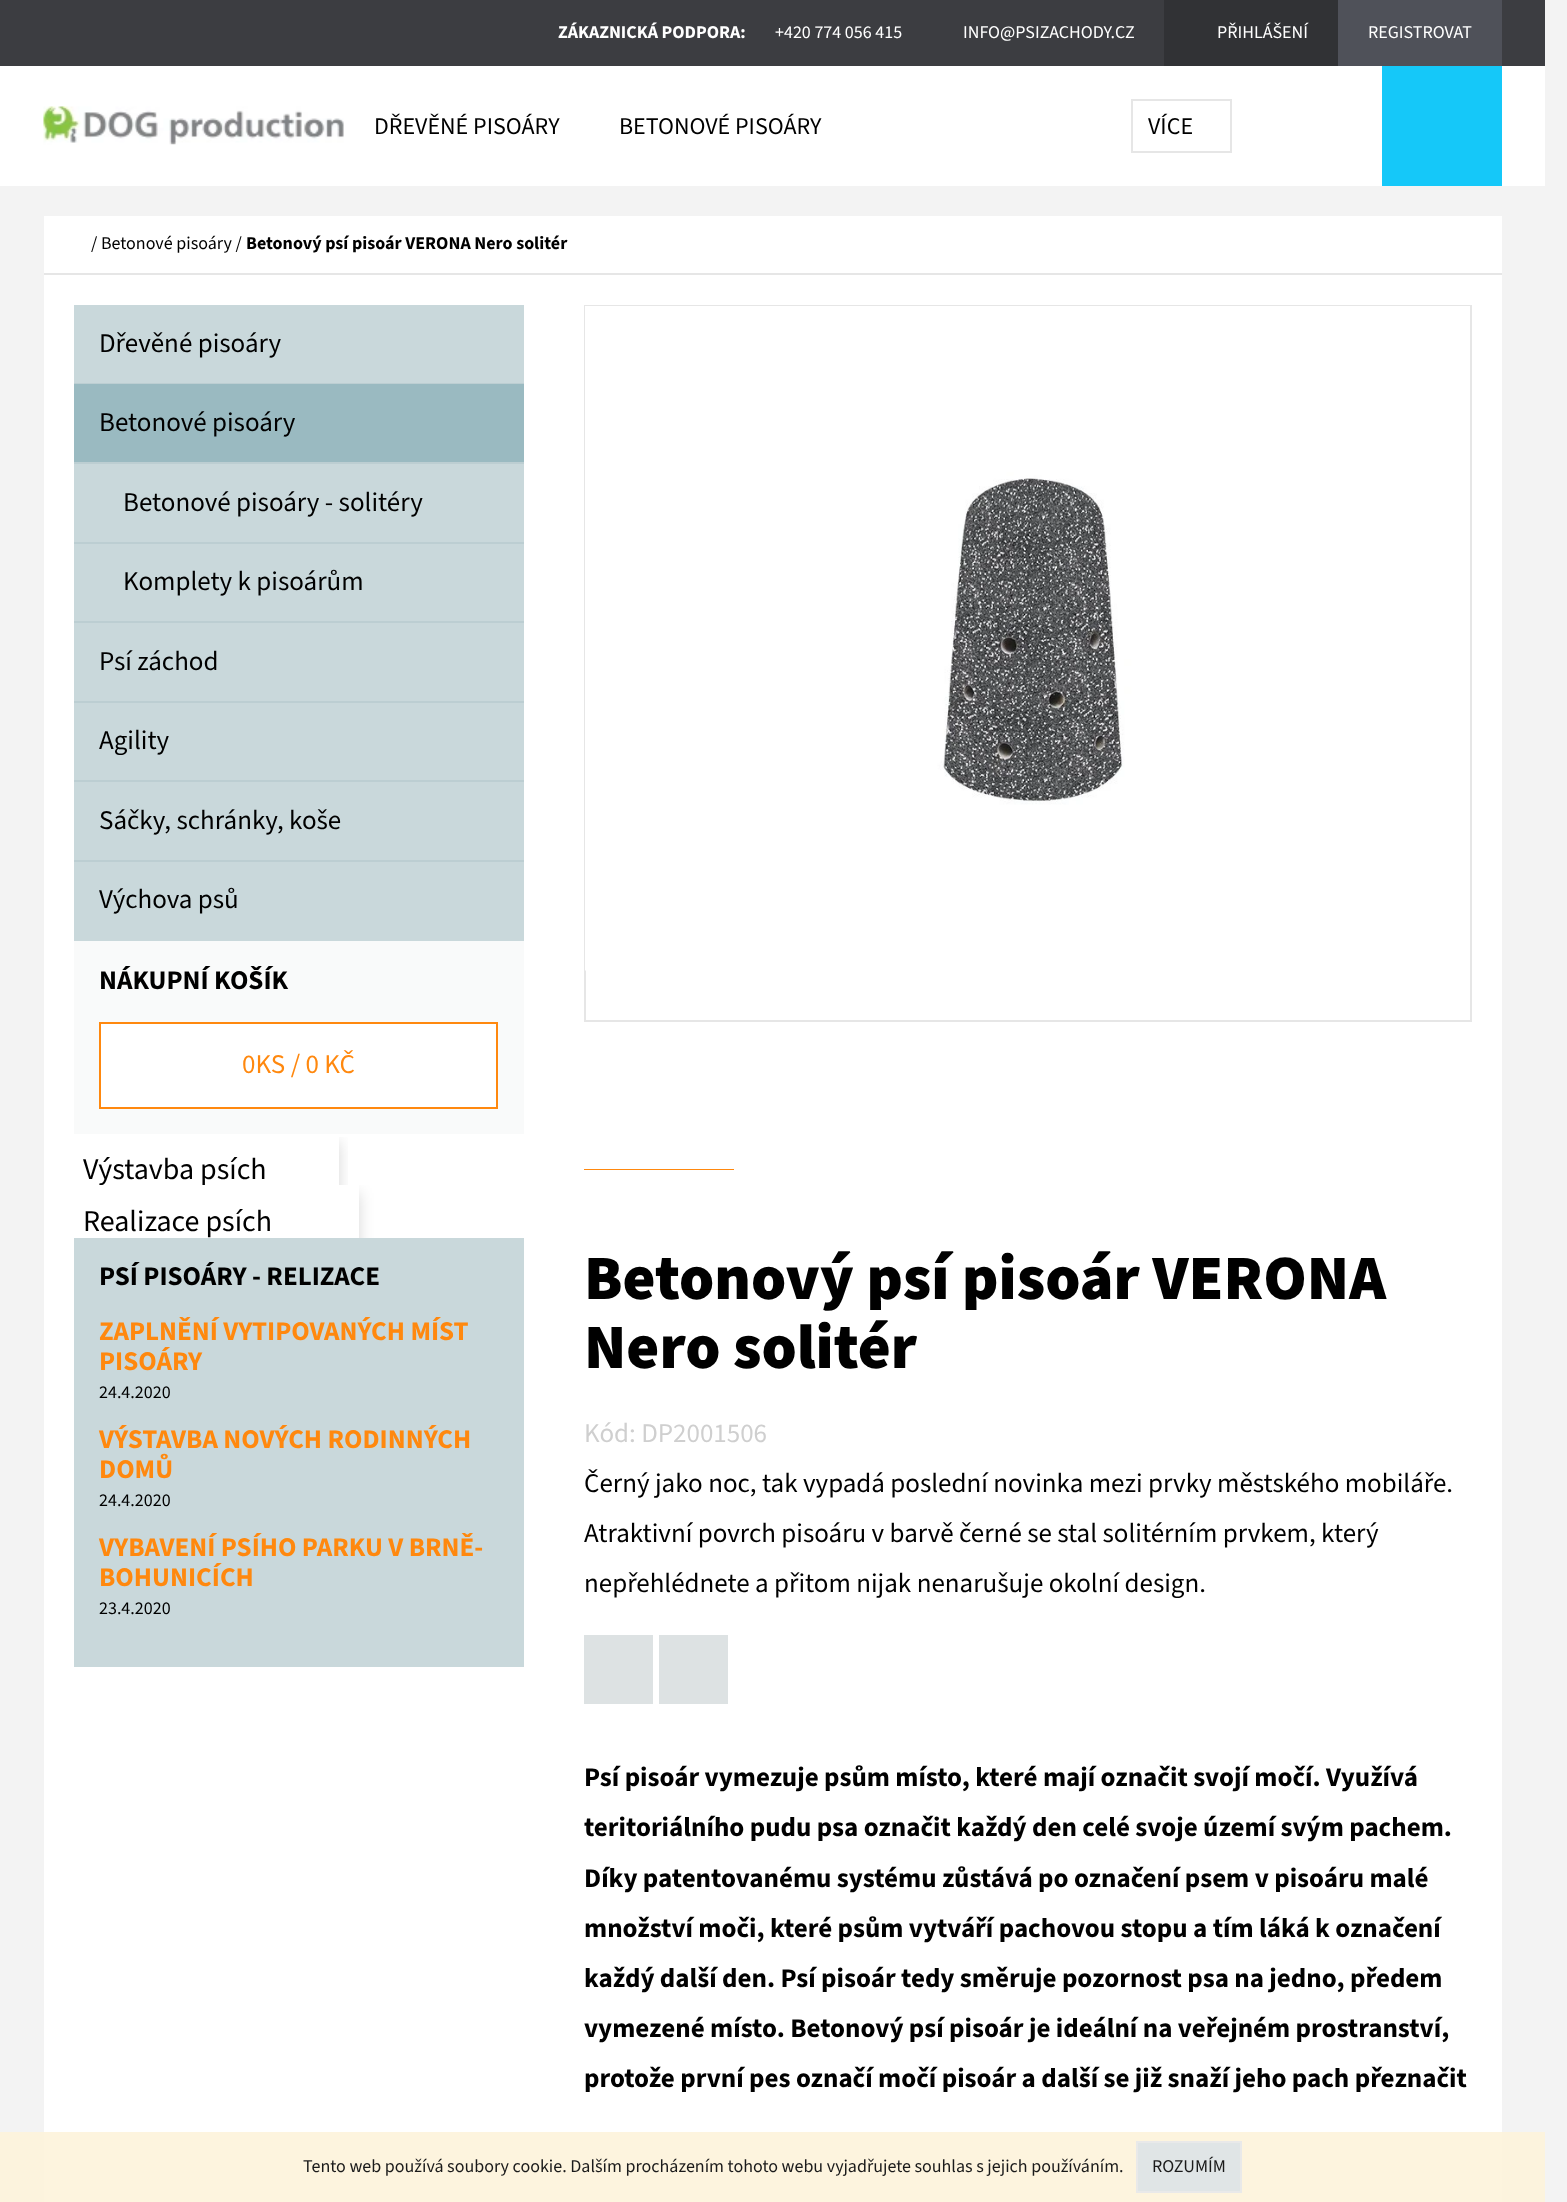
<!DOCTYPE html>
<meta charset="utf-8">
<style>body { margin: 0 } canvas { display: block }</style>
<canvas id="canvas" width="1567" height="2202"></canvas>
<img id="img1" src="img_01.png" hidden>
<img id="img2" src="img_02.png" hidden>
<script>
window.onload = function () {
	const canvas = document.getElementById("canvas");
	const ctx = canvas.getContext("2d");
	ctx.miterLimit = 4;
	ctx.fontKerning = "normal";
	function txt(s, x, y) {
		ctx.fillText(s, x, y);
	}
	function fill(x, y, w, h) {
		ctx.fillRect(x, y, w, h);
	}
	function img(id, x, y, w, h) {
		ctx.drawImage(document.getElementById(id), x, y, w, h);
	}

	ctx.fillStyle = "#F3F3F3";
	fill(0, 0, 1567, 2202);
	ctx.fillStyle = "#3C3D41";
	fill(0, 0, 1545, 66);
	ctx.fillStyle = "#313235";
	fill(1164, 0, 174, 66);
	ctx.fillStyle = "#4F5159";
	fill(1338, 0, 164, 66);
	ctx.fillStyle = "#FFFFFF";
	fill(0, 66, 1545, 120);
	img("img1", 43, 106, 301, 39);
	ctx.strokeStyle = "#E6E6E6";
	ctx.lineWidth = 2;
	ctx.strokeRect(1132, 100, 99, 52);
	ctx.fillStyle = "#15C8F9";
	fill(1382, 66, 120, 120);
	ctx.fillStyle = "#FFFFFF";
	fill(44, 216, 1458, 1986);
	ctx.fillStyle = "#E6E6E6";
	fill(44, 273, 1458, 2);
	ctx.fillStyle = "#C9D8DB";
	fill(74, 305, 450, 636);
	ctx.fillStyle = "#BCCED2";
	fill(74, 383, 450, 1);
	ctx.fillStyle = "#9ABAC1";
	fill(74, 384, 450, 78);
	ctx.fillStyle = "#BCCED2";
	fill(74, 462, 450, 2);
	fill(74, 542, 450, 2);
	fill(74, 621, 450, 2);
	fill(74, 701, 450, 2);
	fill(74, 780, 450, 2);
	fill(74, 860, 450, 2);
	ctx.fillStyle = "#F9FAFA";
	fill(74, 941, 450, 193);
	ctx.fillStyle = "#FFFFFF";
	ctx.beginPath();
	ctx.rect(100, 1023, 397, 85);
	ctx.fill();
	ctx.strokeStyle = "#FF880E";
	ctx.stroke();
	ctx.fillStyle = "#C9D8DB";
	fill(74, 1238, 450, 429);
	ctx.save();
	ctx.beginPath();
	ctx.rect(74, 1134, 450, 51);
	ctx.clip();
	ctx.beginPath();
	ctx.rect(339, 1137, 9, 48);
	ctx.clip();
	ctx.fillStyle = "rgba(0, 0, 0, 0.16)";
	ctx.filter = "blur(7.5px)";
	ctx.beginPath();
	ctx.rect(74, 1142, 265, 129);
	ctx.fill();
	ctx.filter = "none";
	ctx.restore();
	ctx.save();
	ctx.beginPath();
	ctx.rect(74, 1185, 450, 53);
	ctx.clip();
	ctx.beginPath();
	ctx.moveTo(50, 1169);
	ctx.lineTo(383, 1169);
	ctx.lineTo(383, 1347);
	ctx.lineTo(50, 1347);
	ctx.closePath();
	ctx.moveTo(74, 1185);
	ctx.lineTo(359, 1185);
	ctx.lineTo(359, 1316);
	ctx.lineTo(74, 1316);
	ctx.closePath();
	ctx.clip("evenodd");
	ctx.fillStyle = "rgba(0, 0, 0, 0.16)";
	ctx.filter = "blur(7.5px)";
	ctx.beginPath();
	ctx.rect(74, 1193, 285, 130);
	ctx.fill();
	ctx.filter = "none";
	ctx.restore();
	ctx.fillStyle = "rgba(255, 255, 255, 0.9)";
	fill(358, 1188, 1, 50);
	ctx.strokeStyle = "#E6E6E6";
	ctx.strokeRect(585, 306, 886, 715);
	img("img2", 585, 306, 885, 665);
	ctx.fillStyle = "#FF880E";
	fill(584, 1169, 150, 1);
	ctx.fillStyle = "#DDE2E3";
	fill(584, 1635, 69, 69);
	fill(659, 1635, 69, 69);
	ctx.fillStyle = "rgba(253, 243, 218, 0.9)";
	fill(0, 2132, 1545, 70);
	ctx.fillStyle = "#E0E5E6";
	ctx.beginPath();
	ctx.rect(1137, 2142, 104, 50);
	ctx.fill();
	ctx.strokeStyle = "#E9E9E9";
	ctx.stroke();
	ctx.font = "bold 18px 'Source Sans 3'";
	ctx.fillStyle = "#FFFFFF";
	txt("ZÁKAZNICKÁ PODPORA:", 558, 38);
	ctx.font = "18px 'Source Sans 3'";
	txt("+420 774 056 415", 775, 38);
	txt("INFO@PSIZACHODY.CZ", 963, 38);
	txt("PŘIHLÁŠENÍ", 1217, 38);
	txt("REGISTROVAT", 1368, 38);
	ctx.font = "24px 'Source Sans 3'";
	ctx.fillStyle = "#000000";
	txt("DŘEVĚNÉ PISOÁRY", 374, 134);
	txt("BETONOVÉ PISOÁRY", 619, 134);
	txt("VÍCE", 1148, 134);
	ctx.font = "18px 'Source Sans 3'";
	txt("/ Betonové pisoáry /", 91, 249);
	ctx.font = "bold 18px 'Source Sans 3'";
	txt("Betonový psí pisoár VERONA Nero solitér", 246, 249);
	ctx.font = "27px 'Source Sans 3'";
	txt("Dřevěné pisoáry", 99, 352);
	txt("Betonové pisoáry", 99, 431);
	txt("Betonové pisoáry - solitéry", 123, 511);
	txt("Komplety k pisoárům", 123, 590);
	txt("Psí záchod", 99, 670);
	txt("Agility", 99, 749);
	txt("Sáčky, schránky, koše", 99, 829);
	txt("Výchova psů", 99, 908);
	ctx.font = "bold 27px 'Source Sans 3'";
	txt("NÁKUPNÍ KOŠÍK", 99, 989);
	ctx.font = "27px 'Source Sans 3'";
	ctx.fillStyle = "#FF880E";
	txt("0KS / 0 KČ", 242, 1073);
	ctx.save();
	ctx.beginPath();
	ctx.rect(74, 1134, 450, 51);
	ctx.clip();
	ctx.font = "30px 'Source Sans 3'";
	ctx.fillStyle = "#000000";
	txt("Výstavba psích", 83, 1179);
	ctx.restore();
	ctx.font = "30px 'Source Sans 3'";
	ctx.fillStyle = "#000000";
	txt("Realizace psích", 83, 1231);
	ctx.font = "bold 27px 'Source Sans 3'";
	txt("PSÍ PISOÁRY - RELIZACE", 99, 1285);
	ctx.fillStyle = "#FF880E";
	txt("ZAPLNĚNÍ VYTIPOVANÝCH MÍST", 99, 1340);
	txt("PISOÁRY", 99, 1370);
	ctx.font = "18px 'Source Sans 3'";
	ctx.fillStyle = "#000000";
	txt("24.4.2020", 99, 1398);
	ctx.font = "bold 27px 'Source Sans 3'";
	ctx.fillStyle = "#FF880E";
	txt("VÝSTAVBA NOVÝCH RODINNÝCH", 99, 1448);
	txt("DOMŮ", 99, 1478);
	ctx.font = "18px 'Source Sans 3'";
	ctx.fillStyle = "#000000";
	txt("24.4.2020", 99, 1506);
	ctx.font = "bold 27px 'Source Sans 3'";
	ctx.fillStyle = "#FF880E";
	txt("VYBAVENÍ PSÍHO PARKU V BRNĚ-", 99, 1556);
	txt("BOHUNICÍCH", 99, 1586);
	ctx.font = "18px 'Source Sans 3'";
	ctx.fillStyle = "#000000";
	txt("23.4.2020", 99, 1614);
	ctx.font = "900 63px 'Source Sans 3'";
	txt("Betonový psí pisoár VERONA", 584, 1299);
	txt("Nero solitér", 584, 1368);
	ctx.font = "27px 'Source Sans 3'";
	ctx.fillStyle = "#CFCFCF";
	txt("Kód: DP2001506", 584, 1442);
	ctx.fillStyle = "#000000";
	txt("Černý jako noc, tak vypadá poslední novinka mezi prvky městského mobiláře.", 584, 1492);
	txt("Atraktivní povrch pisoáru v barvě černé se stal solitérním prvkem, který", 584, 1542);
	txt("nepřehlédnete a přitom nijak nenarušuje okolní design.", 584, 1592);
	ctx.font = "bold 27px 'Source Sans 3'";
	txt("Psí pisoár vymezuje psům místo, které mají označit svojí močí. Využívá", 584, 1786);
	txt("teritoriálního pudu psa označit každý den celé svoje území svým pachem.", 584, 1836);
	txt("Díky patentovanému systému zůstává po označení psem v pisoáru malé", 584, 1887);
	txt("množství moči, které psům vytváří pachovou stopu a tím láká k označení", 584, 1937);
	txt("každý další den. Psí pisoár tedy směruje pozornost psa na jedno, předem", 584, 1987);
	txt("vymezené místo. Betonový psí pisoár je ideální na veřejném prostranství,", 584, 2037);
	txt("protože první pes označí močí pisoár a další se již snaží jeho pach přeznačit", 584, 2087);
	ctx.font = "18px 'Source Sans 3'";
	ctx.fillStyle = "#1A1A1A";
	txt("Tento web používá soubory cookie. Dalším procházením tohoto webu vyjadřujete souhlas s jejich používáním.", 303, 2172);
	txt("ROZUMÍM", 1152, 2172);
};
</script>
